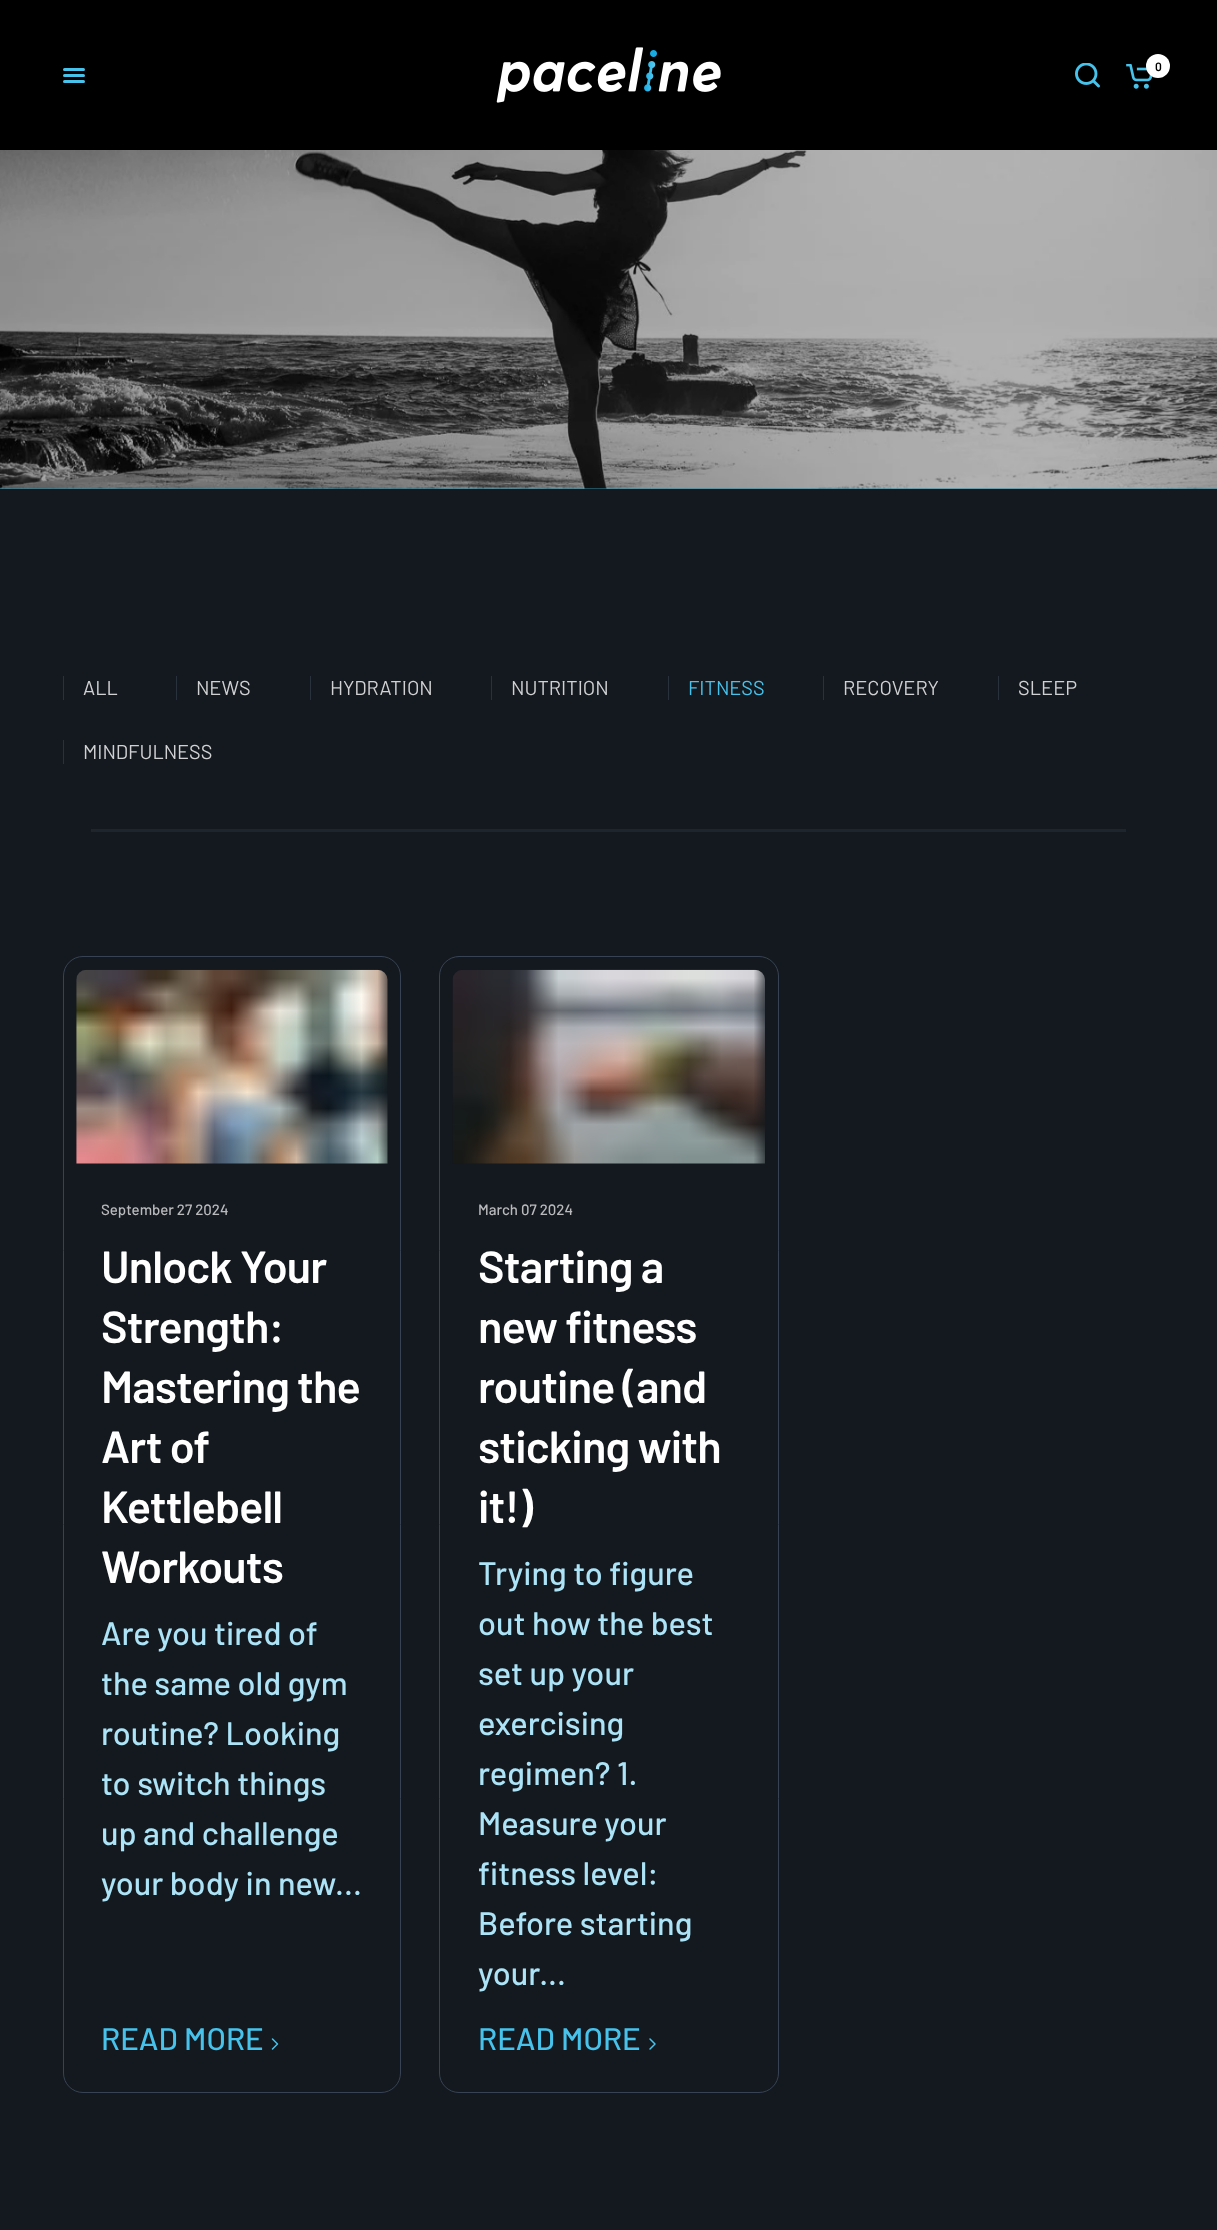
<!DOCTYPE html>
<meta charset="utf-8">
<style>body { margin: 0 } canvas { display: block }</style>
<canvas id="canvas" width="1217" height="2230"></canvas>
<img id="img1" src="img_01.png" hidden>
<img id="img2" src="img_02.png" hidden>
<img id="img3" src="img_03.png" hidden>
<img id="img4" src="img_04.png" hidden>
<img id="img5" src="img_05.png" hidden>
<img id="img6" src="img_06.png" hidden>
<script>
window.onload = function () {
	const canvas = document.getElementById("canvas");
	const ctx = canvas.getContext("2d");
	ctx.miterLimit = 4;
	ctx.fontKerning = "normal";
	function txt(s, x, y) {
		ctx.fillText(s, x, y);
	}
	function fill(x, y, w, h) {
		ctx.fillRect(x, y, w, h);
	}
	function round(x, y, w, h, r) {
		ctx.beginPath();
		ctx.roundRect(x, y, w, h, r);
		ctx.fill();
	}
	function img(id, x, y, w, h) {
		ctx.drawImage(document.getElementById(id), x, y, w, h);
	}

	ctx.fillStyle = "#14191F";
	fill(0, 0, 1217, 2230);
	ctx.fillStyle = "#000000";
	fill(0, 0, 1217, 150);
	img("img1", 496, 47, 225, 56);
	img("img2", 1075, 63, 25, 25);
	img("img3", 1126, 64, 27, 25);
	ctx.fillStyle = "#FFFFFF";
	ctx.beginPath();
	ctx.arc(1158, 66, 12, 0, Math.PI * 2);
	ctx.fill();
	ctx.fillStyle = "#47C2EB";
	round(63, 68, 22, 3, 1.5);
	round(63, 74, 22, 3, 1.5);
	round(63, 80, 22, 3, 1.5);
	fill(0, 488, 1217, 1);
	img("img4", 0, 150, 1217, 339);
	ctx.fillStyle = "rgba(0, 0, 0, 0.3)";
	fill(0, 150, 1217, 339);
	ctx.fillStyle = "#29313D";
	fill(63, 676, 1, 24);
	fill(176, 676, 1, 24);
	fill(310, 676, 1, 24);
	fill(491, 676, 1, 24);
	fill(668, 676, 1, 24);
	fill(823, 676, 1, 24);
	fill(998, 676, 1, 24);
	fill(63, 740, 1, 24);
	ctx.fillStyle = "#1F252D";
	fill(91, 829, 1035, 3);
	ctx.beginPath();
	ctx.roundRect(63.5, 956.5, 337, 1136, 19.5);
	ctx.strokeStyle = "#374353";
	ctx.stroke();
	img("img5", 76, 969, 312, 195);
	ctx.beginPath();
	ctx.moveTo(272.5, 2039);
	ctx.lineTo(277.5, 2044);
	ctx.lineTo(272.5, 2049);
	ctx.strokeStyle = "#47C2EB";
	ctx.lineWidth = 1.5;
	ctx.lineCap = "round";
	ctx.lineJoin = "round";
	ctx.stroke();
	ctx.beginPath();
	ctx.roundRect(439.5, 956.5, 339, 1136, 19.5);
	ctx.strokeStyle = "#374353";
	ctx.lineWidth = 1;
	ctx.lineJoin = "miter";
	ctx.stroke();
	img("img6", 452, 969, 313, 195);
	ctx.beginPath();
	ctx.moveTo(650, 2039);
	ctx.lineTo(655, 2044);
	ctx.lineTo(650, 2049);
	ctx.strokeStyle = "#47C2EB";
	ctx.lineWidth = 1.5;
	ctx.lineJoin = "round";
	ctx.stroke();
	ctx.font = "600 12px Barlow";
	ctx.fillStyle = "#000000";
	txt("0", 1155, 71);
	ctx.font = "20px Barlow";
	ctx.fillStyle = "#D0D1D2";
	txt("ALL", 83, 695);
	txt("NEWS", 196, 695);
	txt("HYDRATION", 330, 695);
	txt("NUTRITION", 511, 695);
	ctx.fillStyle = "#47C2EB";
	txt("FITNESS", 688, 695);
	ctx.fillStyle = "#D0D1D2";
	txt("RECOVERY", 843, 695);
	txt("SLEEP", 1018, 695);
	txt("MINDFULNESS", 83, 759);
	ctx.font = "500 15px Barlow";
	ctx.fillStyle = "#B9BABC";
	txt("September 27 2024", 101, 1215);
	ctx.letterSpacing = "-0.9px";
	ctx.font = "600 45px Barlow";
	ctx.fillStyle = "#FFFFFF";
	txt("Unlock Your", 101, 1283);
	txt("Strength:", 101, 1343);
	txt("Mastering the", 101, 1403);
	txt("Art of", 101, 1463);
	txt("Kettlebell", 101, 1523);
	txt("Workouts", 101, 1583);
	ctx.letterSpacing = "0px";
	ctx.font = "500 32.5px Barlow";
	ctx.fillStyle = "#ACE3F6";
	txt("Are you tired of", 101, 1645);
	txt("the same old gym", 101, 1695);
	txt("routine? Looking", 101, 1745);
	txt("to switch things", 101, 1795);
	txt("up and challenge", 101, 1845);
	txt("your body in new...", 101, 1895);
	ctx.font = "500 31.25px Barlow";
	ctx.fillStyle = "#47C2EB";
	txt("READ MORE", 101, 2050);
	ctx.font = "500 15px Barlow";
	ctx.fillStyle = "#B9BABC";
	txt("March 07 2024", 478, 1215);
	ctx.letterSpacing = "-0.9px";
	ctx.font = "600 45px Barlow";
	ctx.fillStyle = "#FFFFFF";
	txt("Starting a", 478, 1283);
	txt("new fitness", 478, 1343);
	txt("routine (and", 478, 1403);
	txt("sticking with", 478, 1463);
	txt("it!)", 478, 1523);
	ctx.letterSpacing = "0px";
	ctx.font = "500 32.5px Barlow";
	ctx.fillStyle = "#ACE3F6";
	txt("Trying to figure", 478, 1585);
	txt("out how the best", 478, 1635);
	txt("set up your", 478, 1685);
	txt("exercising", 478, 1735);
	txt("regimen? 1.", 478, 1785);
	txt("Measure your", 478, 1835);
	txt("fitness level:", 478, 1885);
	txt("Before starting", 478, 1935);
	txt("your...", 478, 1985);
	ctx.font = "500 31.25px Barlow";
	ctx.fillStyle = "#47C2EB";
	txt("READ MORE", 478, 2050);
};
</script>
